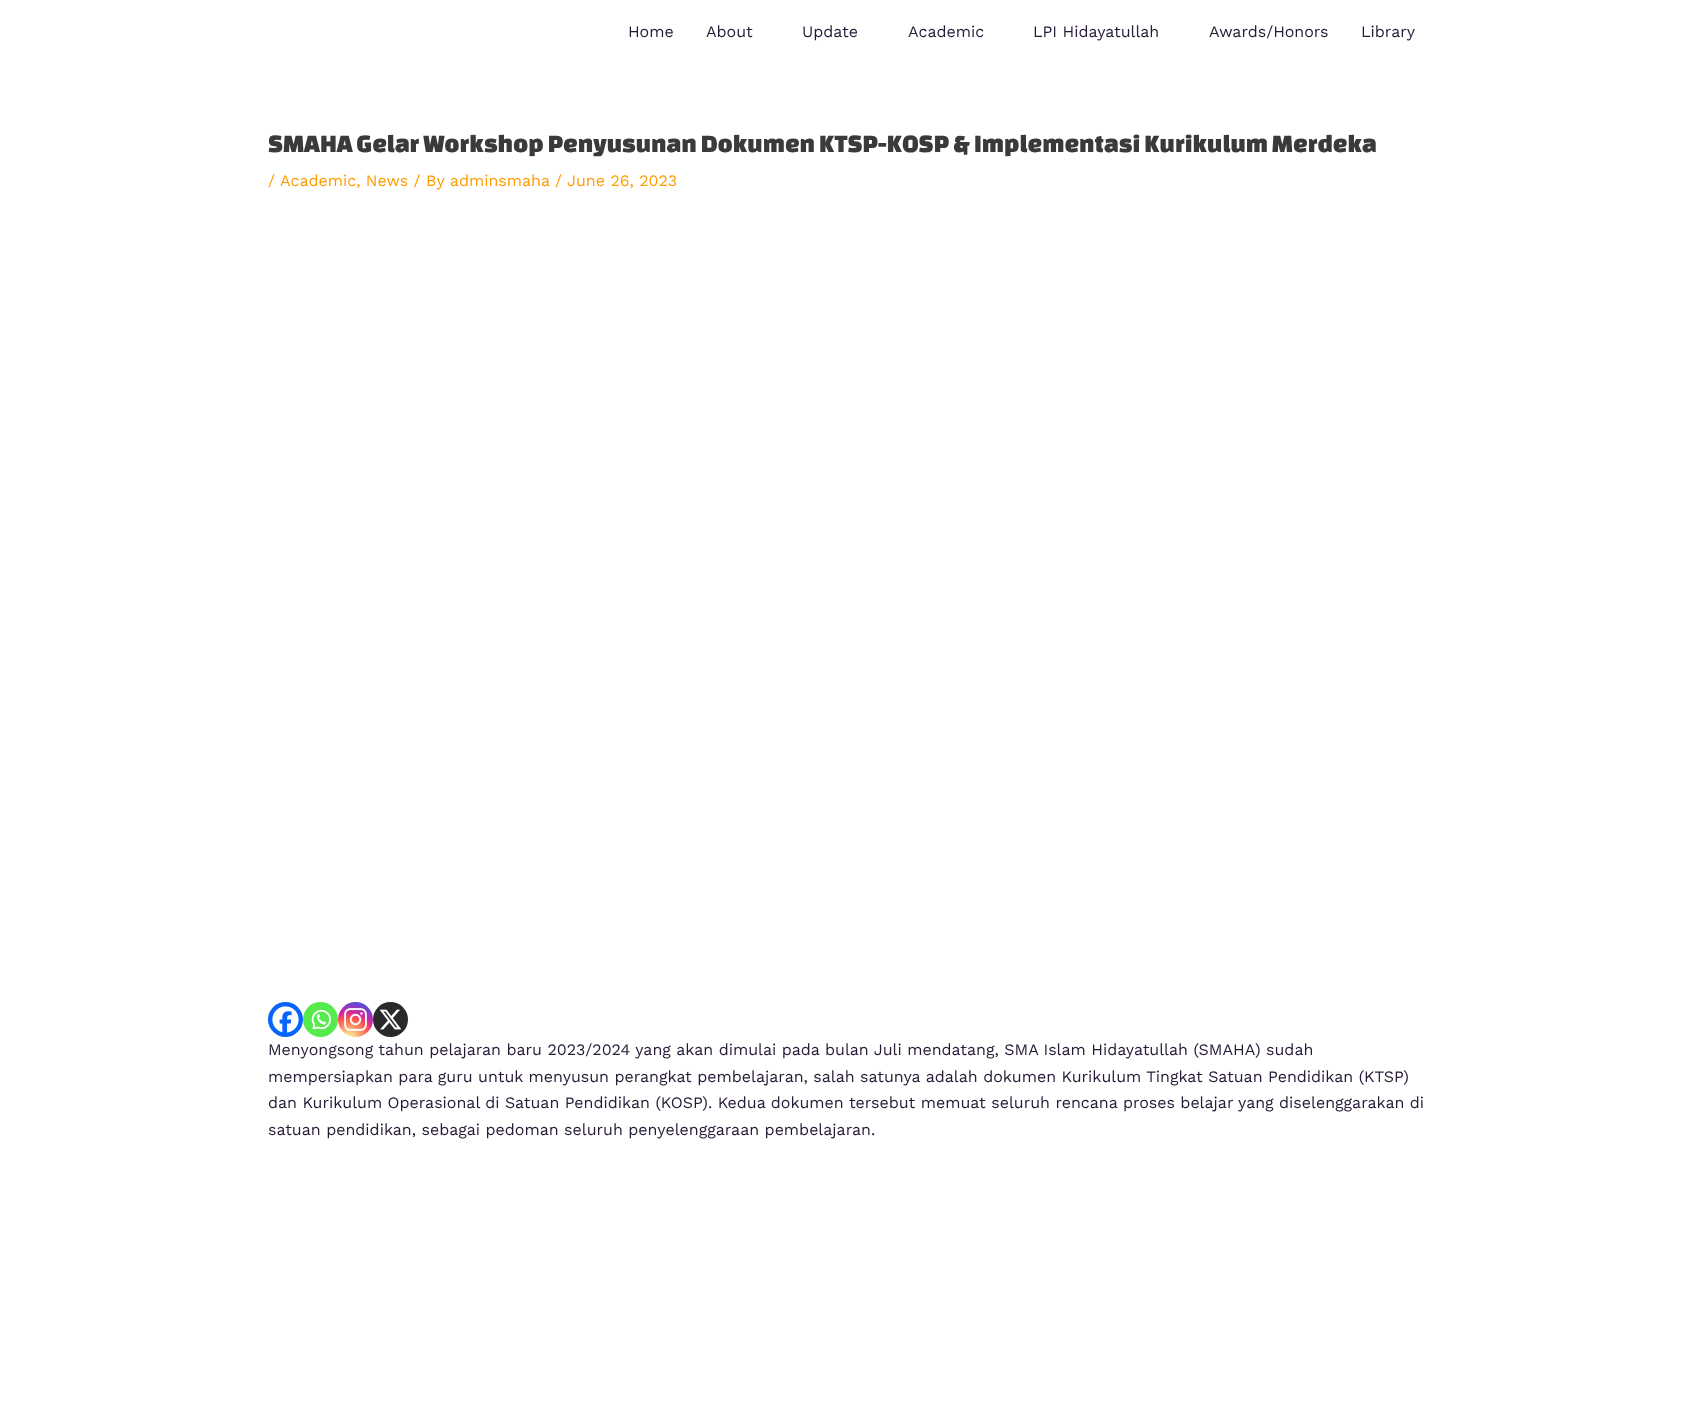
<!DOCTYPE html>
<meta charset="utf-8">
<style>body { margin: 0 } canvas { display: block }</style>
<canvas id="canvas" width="1696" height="1411"></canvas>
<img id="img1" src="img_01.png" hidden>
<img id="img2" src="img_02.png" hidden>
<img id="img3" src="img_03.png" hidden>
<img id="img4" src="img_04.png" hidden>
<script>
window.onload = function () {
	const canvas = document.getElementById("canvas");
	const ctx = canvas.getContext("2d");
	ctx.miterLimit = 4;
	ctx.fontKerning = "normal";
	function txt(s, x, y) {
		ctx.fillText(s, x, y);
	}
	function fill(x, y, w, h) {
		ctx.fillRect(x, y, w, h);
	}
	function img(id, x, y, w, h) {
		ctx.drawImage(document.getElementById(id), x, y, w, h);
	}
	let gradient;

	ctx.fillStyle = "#FFFFFF";
	fill(0, 0, 1696, 1411);
	ctx.fillStyle = "#0765FE";
	ctx.beginPath();
	ctx.arc(285.5, 1019.5, 17.5, 0, Math.PI * 2);
	ctx.fill();
	img("img1", 272, 1006, 27, 27);
	ctx.fillStyle = "#55EB4C";
	ctx.beginPath();
	ctx.arc(320.5, 1019.5, 17.5, 0, Math.PI * 2);
	ctx.fill();
	img("img2", 311, 1009, 20, 21);
	gradient = ctx.createRadialGradient(349, 1039, 0, 349, 1039, 45);
	gradient.addColorStop(0, "#FDF497");
	gradient.addColorStop(0.05, "#FDF497");
	gradient.addColorStop(0.45, "#FD5949");
	gradient.addColorStop(0.6, "#D6249F");
	gradient.addColorStop(0.9, "#285AEB");
	ctx.fillStyle = gradient;
	ctx.beginPath();
	ctx.arc(355.5, 1019.5, 17.5, 0, Math.PI * 2);
	ctx.fill();
	img("img3", 344, 1008, 23, 23);
	ctx.fillStyle = "#2A2A2A";
	ctx.beginPath();
	ctx.arc(390.5, 1019.5, 17.5, 0, Math.PI * 2);
	ctx.fill();
	img("img4", 379, 1009, 23, 21);
	ctx.font = "16px Work Sans";
	ctx.fillStyle = "#261A36";
	txt("Home", 628, 37);
	txt("About", 706, 37);
	txt("Update", 802, 37);
	txt("Academic", 908, 37);
	txt("LPI Hidayatullah", 1033, 37);
	txt("Awards/Honors", 1209, 37);
	txt("Library", 1361, 37);
	ctx.font = "26px Changa One";
	ctx.fillStyle = "#3A3A3A";
	txt("SMAHA Gelar Workshop Penyusunan Dokumen KTSP-KOSP & Implementasi Kurikulum Merdeka", 268, 152);
	ctx.font = "16px Work Sans";
	ctx.fillStyle = "#FF9C00";
	txt("/", 268, 186);
	txt("Academic, News / By adminsmaha /", 280, 186);
	txt("June 26, 2023", 567, 186);
	ctx.fillStyle = "#261A36";
	txt("Menyongsong tahun pelajaran baru 2023/2024 yang akan dimulai pada bulan Juli mendatang, SMA Islam Hidayatullah (SMAHA) sudah", 268, 1055);
	txt("mempersiapkan para guru untuk menyusun perangkat pembelajaran, salah satunya adalah dokumen Kurikulum Tingkat Satuan Pendidikan (KTSP)", 268, 1082);
	txt("dan Kurikulum Operasional di Satuan Pendidikan (KOSP). Kedua dokumen tersebut memuat seluruh rencana proses belajar yang diselenggarakan di", 268, 1108);
	txt("satuan pendidikan, sebagai pedoman seluruh penyelenggaraan pembelajaran.", 268, 1135);
};
</script>
